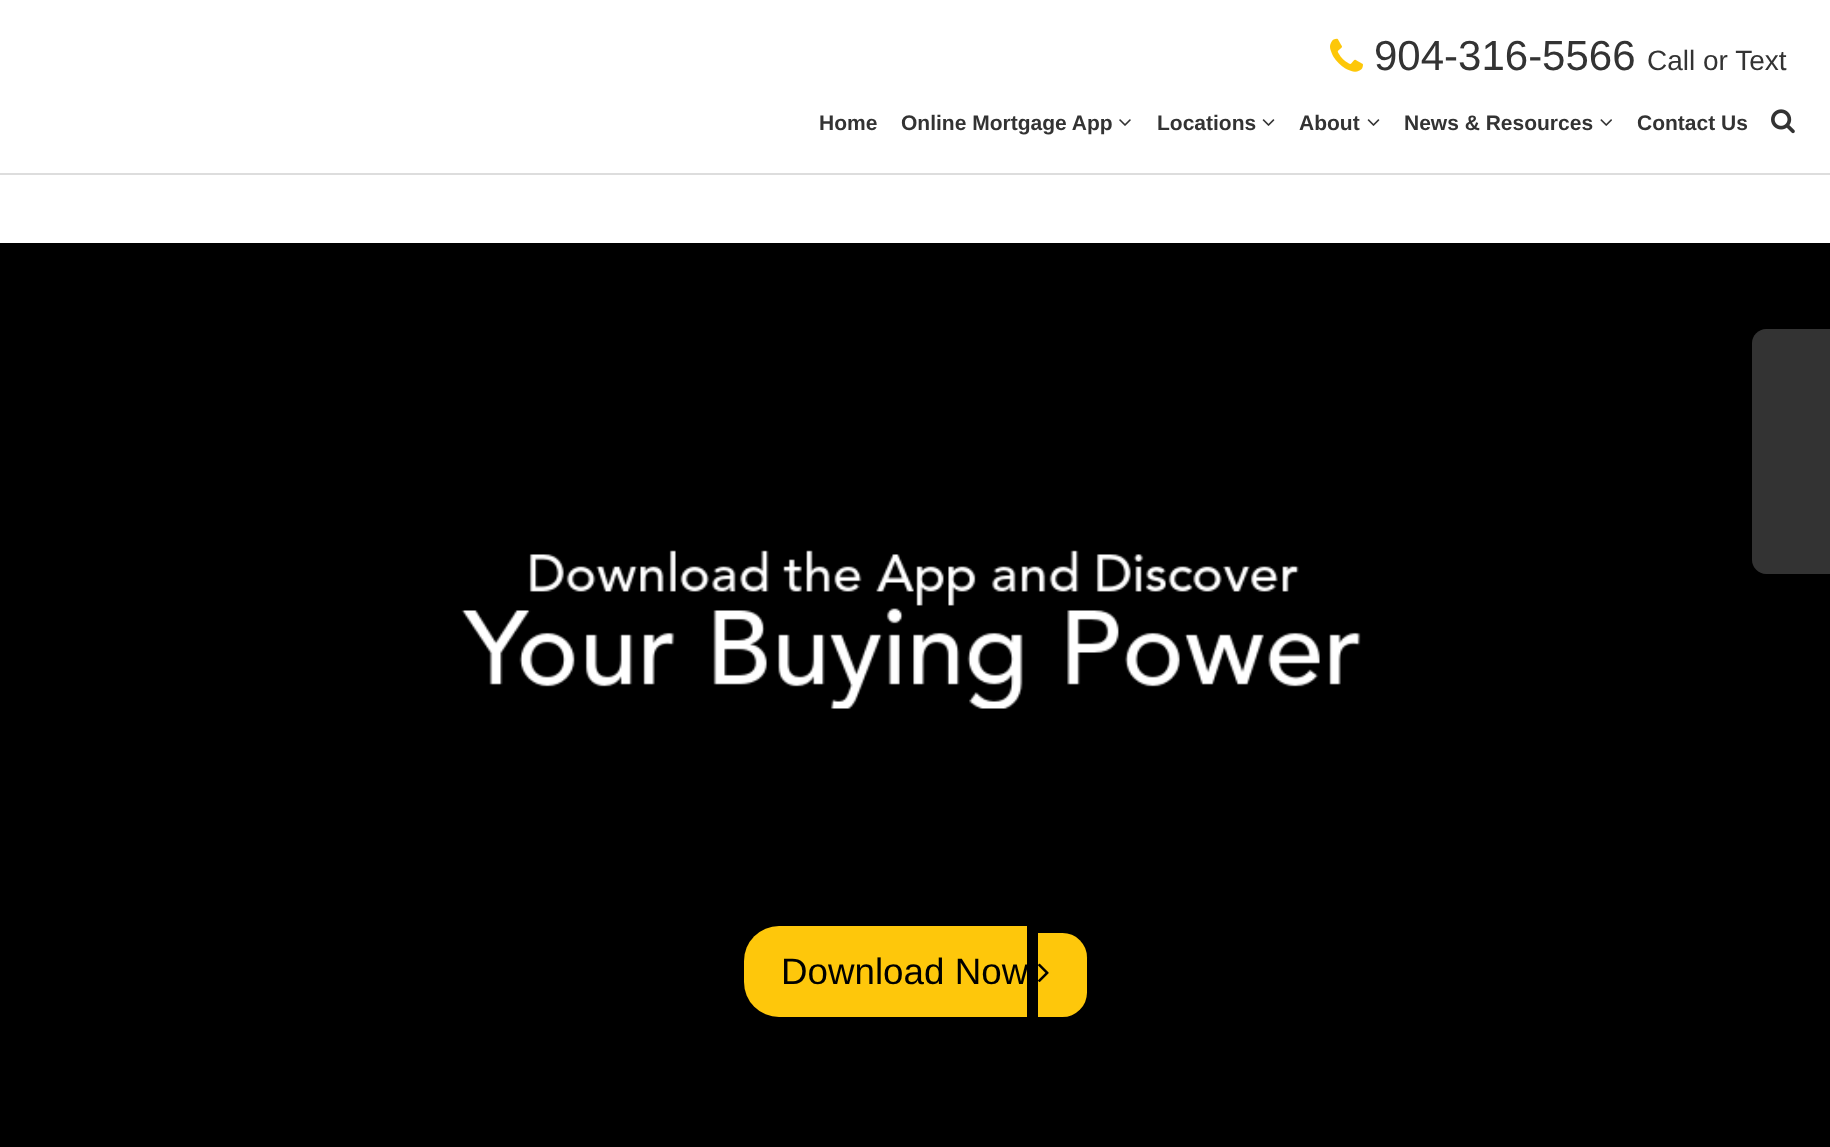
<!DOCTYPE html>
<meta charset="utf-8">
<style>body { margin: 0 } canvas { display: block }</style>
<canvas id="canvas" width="1830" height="1147"></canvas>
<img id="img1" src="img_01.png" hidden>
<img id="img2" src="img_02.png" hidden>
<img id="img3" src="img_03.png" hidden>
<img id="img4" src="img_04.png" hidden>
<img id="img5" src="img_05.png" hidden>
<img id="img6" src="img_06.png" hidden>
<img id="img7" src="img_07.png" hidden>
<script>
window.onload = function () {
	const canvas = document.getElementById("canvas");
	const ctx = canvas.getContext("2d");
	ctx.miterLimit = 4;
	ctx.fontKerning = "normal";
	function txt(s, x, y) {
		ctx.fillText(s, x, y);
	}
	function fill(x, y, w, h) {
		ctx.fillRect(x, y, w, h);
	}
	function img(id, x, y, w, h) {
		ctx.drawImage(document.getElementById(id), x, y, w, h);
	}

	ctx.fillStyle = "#FFFFFF";
	fill(0, 0, 1830, 1147);
	ctx.fillStyle = "#DDDDDD";
	fill(0, 173, 1830, 2);
	img("img1", 1330, 38, 33, 34);
	img("img2", 1119, 119, 12, 7);
	img("img3", 1262, 119, 13, 7);
	img("img3", 1367, 119, 13, 7);
	img("img4", 1600, 119, 12, 7);
	img("img5", 1771, 109, 24, 25);
	ctx.fillStyle = "#000000";
	fill(0, 243, 1830, 904);
	ctx.fillStyle = "#333333";
	ctx.beginPath();
	ctx.moveTo(1766, 329);
	ctx.lineTo(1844, 329);
	ctx.lineTo(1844, 574);
	ctx.lineTo(1766, 574);
	ctx.bezierCurveTo(1758.5, 574, 1752, 567.5, 1752, 560);
	ctx.lineTo(1752, 343);
	ctx.bezierCurveTo(1752, 335.5, 1758.5, 329, 1766, 329);
	ctx.closePath();
	ctx.fill();
	img("img6", 461, 550, 900, 159);
	ctx.fillStyle = "#FEC70B";
	ctx.beginPath();
	ctx.roundRect(744, 926, 283, 91, [35, 0, 0, 35]);
	ctx.fill();
	ctx.beginPath();
	ctx.roundRect(1038, 933, 49, 84, [0, 24.5, 24.5, 0]);
	ctx.fill();
	img("img7", 1038, 963, 11, 19);
	ctx.font = "42px Liberation Sans";
	ctx.fillStyle = "#333333";
	txt("904-316-5566", 1374, 70);
	ctx.font = "28px Liberation Sans";
	txt("Call or Text", 1647, 70);
	ctx.font = "bold 21px Liberation Sans";
	txt("Home", 819, 130);
	txt("Online Mortgage App", 901, 130);
	txt("Locations", 1157, 130);
	txt("About", 1299, 130);
	txt("News & Resources", 1404, 130);
	txt("Contact Us", 1637, 130);
	ctx.font = "36.75px Liberation Sans";
	ctx.fillStyle = "#000000";
	txt("Download Now", 781, 984);
};
</script>
